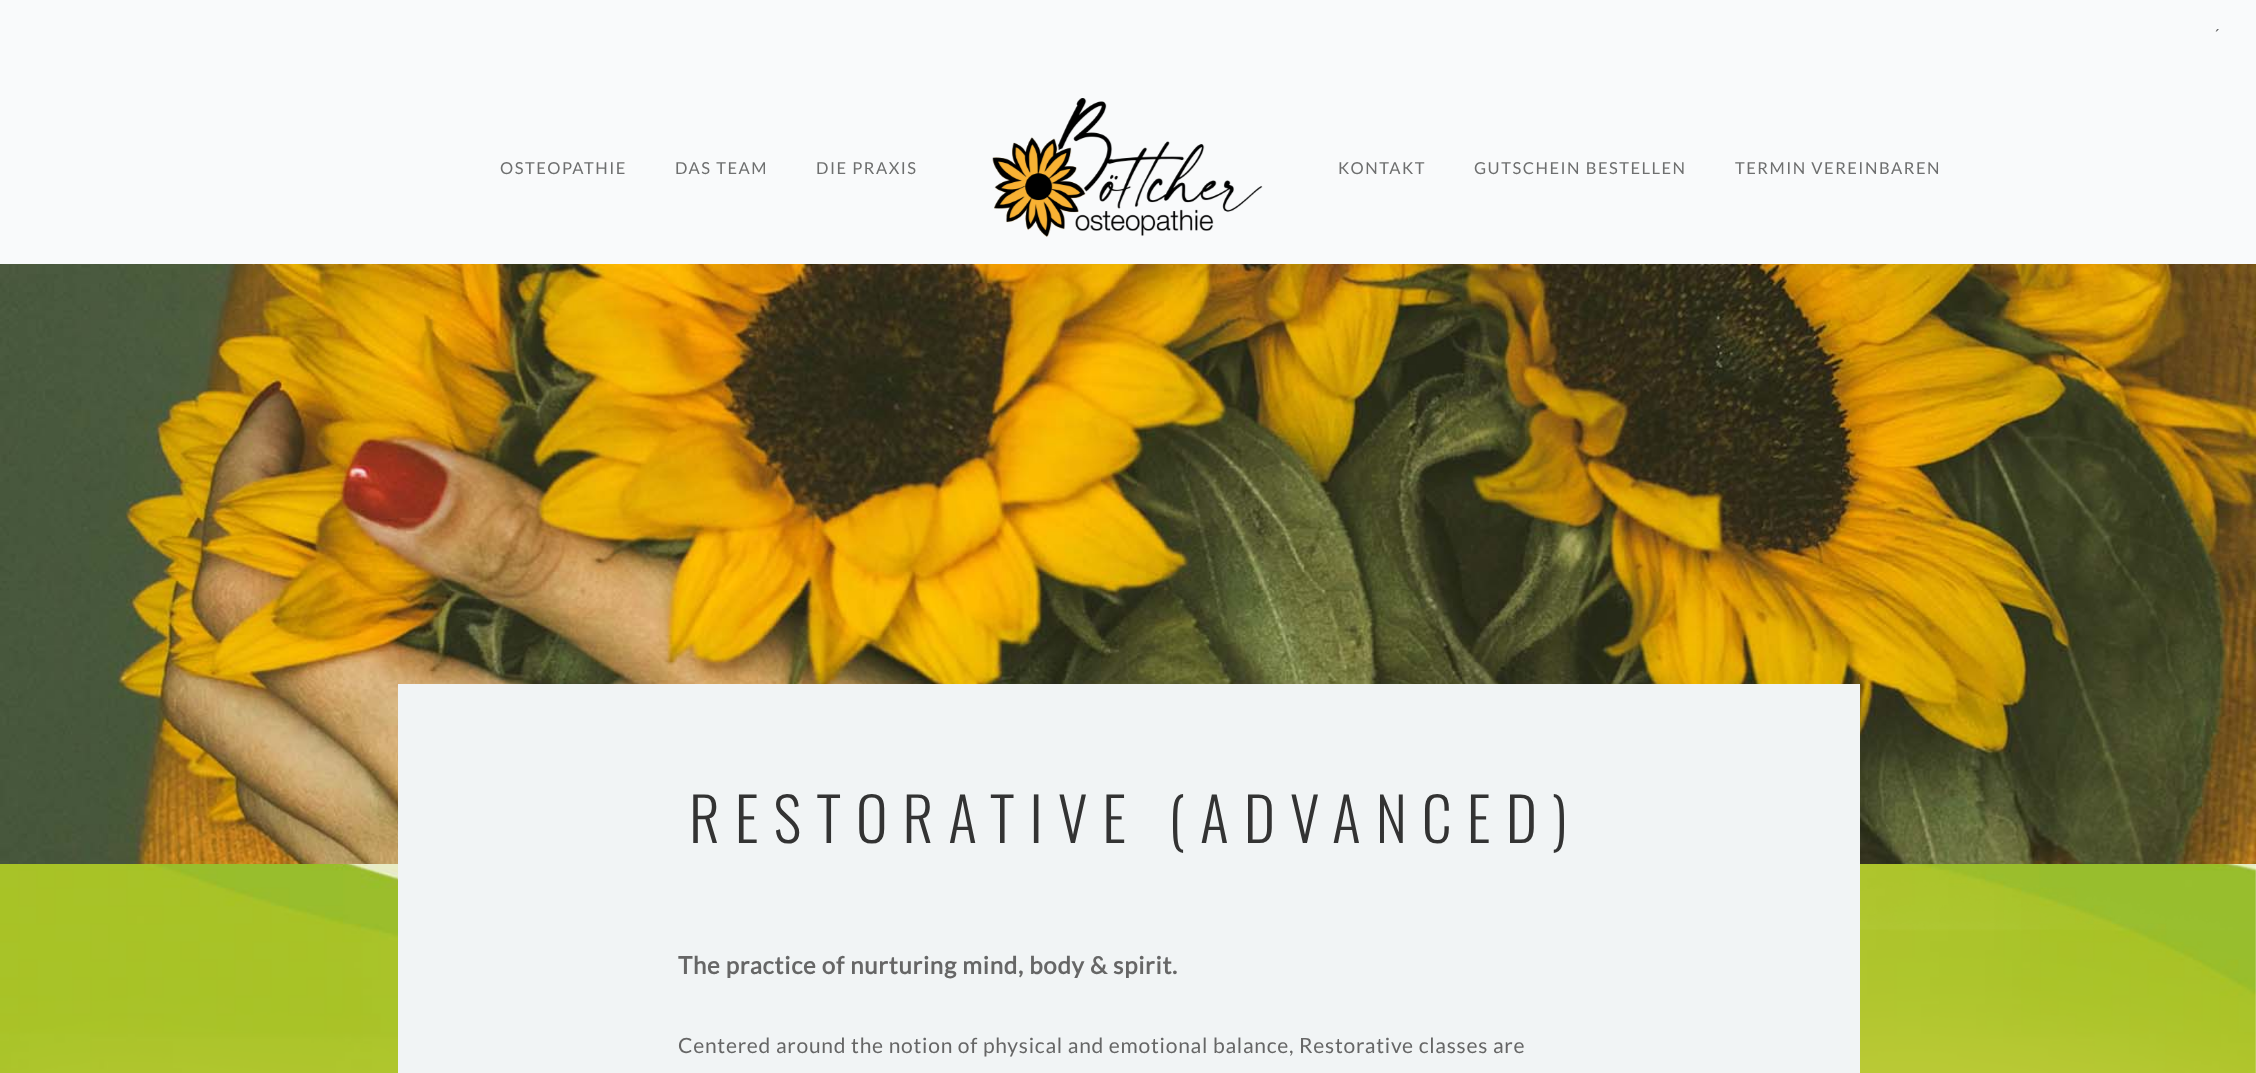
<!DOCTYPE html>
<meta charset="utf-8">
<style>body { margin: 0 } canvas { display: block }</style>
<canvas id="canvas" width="2256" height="1073"></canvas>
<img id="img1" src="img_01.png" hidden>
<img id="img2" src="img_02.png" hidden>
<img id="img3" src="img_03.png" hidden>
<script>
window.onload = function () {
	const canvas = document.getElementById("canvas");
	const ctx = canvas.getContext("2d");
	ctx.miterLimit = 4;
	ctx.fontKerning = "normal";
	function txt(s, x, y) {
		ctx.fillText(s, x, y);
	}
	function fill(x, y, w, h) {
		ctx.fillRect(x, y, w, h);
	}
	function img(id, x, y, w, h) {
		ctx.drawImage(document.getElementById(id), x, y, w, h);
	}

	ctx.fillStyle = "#F9FAFB";
	fill(0, 0, 2256, 1073);
	img("img1", 0, 864, 2256, 209);
	img("img2", 992, 98, 271, 139);
	img("img3", 0, 264, 2256, 600);
	ctx.fillStyle = "#F1F4F5";
	fill(398, 684, 1462, 389);
	ctx.letterSpacing = "0.75px";
	ctx.font = "16.5px Lato";
	ctx.fillStyle = "#666666";
	txt("´", 2214, 41);
	ctx.letterSpacing = "1.5px";
	ctx.fillStyle = "#6E6F6F";
	txt("OSTEOPATHIE", 500, 174);
	txt("DAS TEAM", 675, 174);
	txt("DIE PRAXIS", 816, 174);
	txt("KONTAKT", 1338, 174);
	txt("GUTSCHEIN BESTELLEN", 1474, 174);
	txt("TERMIN VEREINBAREN", 1735, 174);
	ctx.letterSpacing = "15px";
	ctx.font = "300 60px Oswald";
	ctx.fillStyle = "#333333";
	txt("RESTORATIVE (ADVANCED)", 689, 843);
	ctx.letterSpacing = "0.75px";
	ctx.font = "bold 24px Lato";
	ctx.fillStyle = "#666666";
	txt("The practice of nurturing mind, body & spirit.", 678, 974);
	ctx.font = "21px Lato";
	txt("Centered around the notion of physical and emotional balance, Restorative classes are", 678, 1053);
};
</script>
